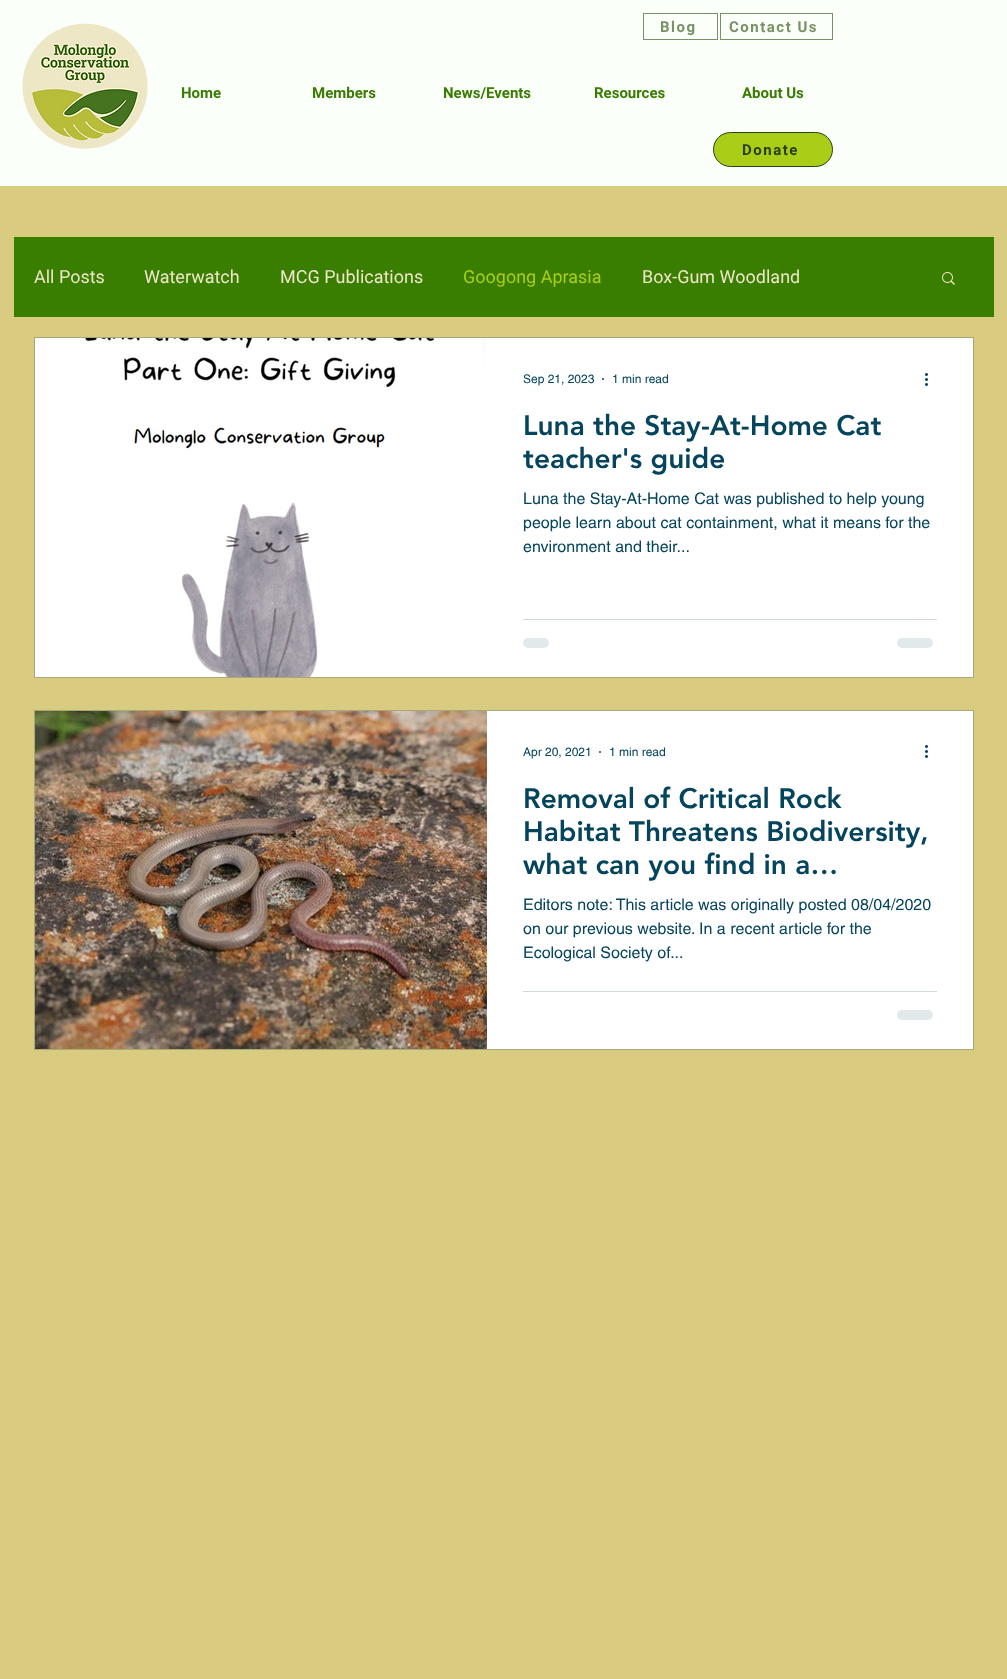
<!DOCTYPE html>
<meta charset="utf-8">
<style>body { margin: 0 } canvas { display: block }</style>
<canvas id="canvas" width="1007" height="1679"></canvas>
<img id="img1" src="img_01.png" hidden>
<img id="img2" src="img_02.png" hidden>
<img id="img3" src="img_03.png" hidden>
<img id="img4" src="img_04.png" hidden>
<img id="img5" src="img_05.png" hidden>
<img id="img6" src="img_06.png" hidden>
<script>
window.onload = function () {
	const canvas = document.getElementById("canvas");
	const ctx = canvas.getContext("2d");
	ctx.miterLimit = 4;
	ctx.fontKerning = "normal";
	function txt(s, x, y) {
		ctx.fillText(s, x, y);
	}
	function fill(x, y, w, h) {
		ctx.fillRect(x, y, w, h);
	}
	function round(x, y, w, h, r) {
		ctx.beginPath();
		ctx.roundRect(x, y, w, h, r);
		ctx.fill();
	}
	function img(id, x, y, w, h) {
		ctx.drawImage(document.getElementById(id), x, y, w, h);
	}

	ctx.fillStyle = "#D9CC80";
	fill(0, 0, 1007, 1679);
	ctx.fillStyle = "#FBFFFA";
	fill(0, 0, 1007, 186);
	img("img1", 22, 23, 126, 126);
	ctx.strokeStyle = "#799163";
	ctx.strokeRect(643.5, 13.5, 74, 26);
	ctx.strokeRect(720.5, 13.5, 112, 26);
	ctx.fillStyle = "#AACE18";
	ctx.beginPath();
	ctx.roundRect(713.5, 132.5, 119, 34, 17);
	ctx.fill();
	ctx.strokeStyle = "#284020";
	ctx.stroke();
	ctx.fillStyle = "#3A7E00";
	fill(14, 237, 980, 80);
	img("img2", 942, 272, 13, 13);
	ctx.strokeStyle = "#A4AA77";
	ctx.strokeRect(34.5, 337.5, 939, 340);
	img("img3", 35, 338, 447, 339);
	img("img4", 482, 338, 5, 339);
	ctx.fillStyle = "#FFFFFF";
	fill(487, 338, 486, 339);
	ctx.fillStyle = "#04445C";
	ctx.beginPath();
	ctx.arc(603, 379, 1, 0, Math.PI * 2);
	ctx.fill();
	img("img5", 925, 373, 3, 13);
	ctx.fillStyle = "#CDDADE";
	fill(523, 619, 414, 1);
	ctx.fillStyle = "#E1E9EB";
	round(523, 638, 26, 10, 5);
	round(897, 638, 36, 10, 5);
	ctx.strokeRect(34.5, 710.5, 939, 339);
	img("img6", 35, 711, 452, 338);
	ctx.fillStyle = "#FFFFFF";
	fill(487, 711, 486, 338);
	ctx.fillStyle = "#04445C";
	ctx.beginPath();
	ctx.arc(600, 752, 1, 0, Math.PI * 2);
	ctx.fill();
	img("img5", 925, 745, 3, 13);
	ctx.fillStyle = "#CDDADE";
	fill(523, 991, 414, 1);
	ctx.fillStyle = "#E1E9EB";
	round(897, 1010, 36, 10, 5);
	ctx.letterSpacing = "1.5px";
	ctx.font = "bold 15px Roboto";
	ctx.fillStyle = "#799163";
	txt("Blog", 660, 32);
	txt("Contact Us", 729, 32);
	ctx.letterSpacing = "0px";
	ctx.fillStyle = "#3A7C00";
	txt("Home", 181, 98);
	txt("Members", 312, 98);
	txt("News/Events", 443, 98);
	txt("Resources", 594, 98);
	txt("About Us", 742, 98);
	ctx.letterSpacing = "1.5px";
	ctx.fillStyle = "#284020";
	txt("Donate", 742, 155);
	ctx.letterSpacing = "0px";
	ctx.font = "18px Roboto";
	ctx.fillStyle = "#EDE6C9";
	txt("All Posts", 34, 283);
	txt("Waterwatch", 144, 283);
	txt("MCG Publications", 280, 283);
	ctx.fillStyle = "#AACE18";
	txt("Googong Aprasia", 463, 283);
	ctx.fillStyle = "#EDE6C9";
	txt("Box-Gum Woodland", 642, 283);
	ctx.font = "12px helvetica";
	ctx.fillStyle = "#04445C";
	txt("Sep 21, 2023", 523, 383);
	txt("1 min read", 612, 383);
	ctx.font = "900 28px 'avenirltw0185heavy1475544'";
	txt("Luna the Stay-At-Home Cat", 523, 435);
	ctx.save();
	ctx.beginPath();
	ctx.rect(523, 409, 414, 66);
	ctx.clip();
	txt("teacher's guide", 523, 468);
	ctx.restore();
	ctx.font = "16px helvetica";
	txt("Luna the Stay-At-Home Cat was published to help young", 523, 504);
	txt("people learn about cat containment, what it means for the", 523, 528);
	txt("environment and their...", 523, 552);
	ctx.font = "12px helvetica";
	txt("Apr 20, 2021", 523, 756);
	txt("1 min read", 609, 756);
	ctx.font = "900 28px 'avenirltw0185heavy1475544'";
	txt("Removal of Critical Rock", 523, 808);
	txt("Habitat Threatens Biodiversity,", 523, 841);
	txt("what can you find in a…", 523, 874);
	ctx.font = "16px helvetica";
	txt("Editors note: This article was originally posted 08/04/2020", 523, 910);
	txt("on our previous website. In a recent article for the", 523, 934);
	txt("Ecological Society of...", 523, 958);
};
</script>
